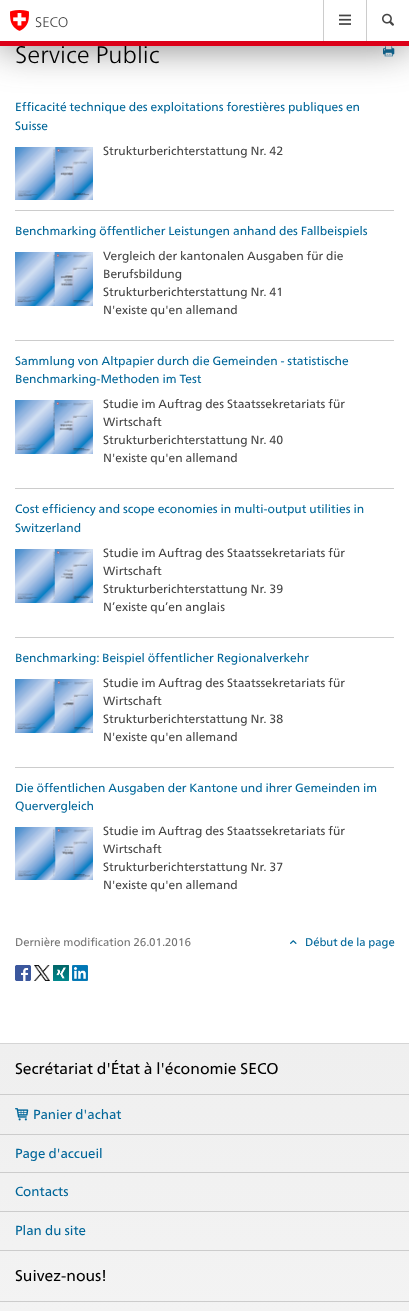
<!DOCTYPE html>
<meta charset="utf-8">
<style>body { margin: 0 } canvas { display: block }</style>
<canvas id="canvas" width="409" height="1311"></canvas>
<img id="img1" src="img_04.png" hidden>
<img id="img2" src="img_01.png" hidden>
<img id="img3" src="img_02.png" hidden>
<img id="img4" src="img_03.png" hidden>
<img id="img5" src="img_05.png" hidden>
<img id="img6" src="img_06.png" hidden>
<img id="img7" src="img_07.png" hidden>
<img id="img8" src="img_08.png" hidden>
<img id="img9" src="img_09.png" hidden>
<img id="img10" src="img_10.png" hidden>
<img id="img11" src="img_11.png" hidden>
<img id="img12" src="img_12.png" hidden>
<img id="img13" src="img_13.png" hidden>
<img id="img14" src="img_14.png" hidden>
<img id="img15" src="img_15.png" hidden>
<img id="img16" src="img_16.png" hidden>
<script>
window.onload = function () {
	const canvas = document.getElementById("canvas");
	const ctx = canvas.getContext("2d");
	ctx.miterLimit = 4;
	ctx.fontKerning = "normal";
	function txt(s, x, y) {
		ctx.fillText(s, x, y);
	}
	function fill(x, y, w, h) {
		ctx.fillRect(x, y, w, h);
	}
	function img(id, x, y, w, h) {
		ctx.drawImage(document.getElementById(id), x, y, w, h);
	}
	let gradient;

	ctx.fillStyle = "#FFFFFF";
	fill(0, 0, 409, 1311);
	img("img1", 383, 46, 12, 11);
	ctx.fillStyle = "rgba(69, 69, 69, 0.7)";
	ctx.filter = "blur(20px)";
	ctx.beginPath();
	ctx.rect(0, 0, 409, 46);
	ctx.fill();
	ctx.filter = "none";
	ctx.fillStyle = "#FFFFFF";
	fill(0, 0, 409, 41);
	img("img2", 10, 10, 19, 21);
	ctx.fillStyle = "#CCCCCC";
	fill(323, 0, 1, 41);
	img("img3", 339, 14, 12, 11);
	fill(366, 0, 1, 41);
	img("img4", 382, 13, 12, 13);
	fill(15, 210, 379, 1);
	img("img5", 15, 147, 78, 53);
	fill(15, 340, 379, 1);
	img("img6", 15, 252, 78, 54);
	fill(15, 488, 379, 1);
	img("img7", 15, 400, 78, 54);
	fill(15, 637, 379, 1);
	img("img8", 15, 549, 78, 54);
	fill(15, 767, 379, 1);
	img("img9", 15, 679, 78, 54);
	img("img10", 15, 827, 78, 53);
	img("img11", 290, 940, 7, 4);
	img("img12", 15, 965, 16, 16);
	img("img13", 34, 965, 16, 16);
	img("img14", 53, 965, 16, 16);
	img("img15", 72, 965, 16, 16);
	gradient = ctx.createLinearGradient(204, 1044, 205, 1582);
	gradient.addColorStop(0, "#EFEFEF");
	gradient.addColorStop(1, "#F7F7F7");
	ctx.fillStyle = gradient;
	fill(0, 1044, 409, 267);
	ctx.fillStyle = "#D5D5D5";
	fill(0, 1043, 409, 1);
	ctx.fillStyle = "#CCCCCC";
	fill(0, 1250, 409, 1);
	fill(0, 1094, 409, 1);
	img("img16", 15, 1108, 14, 13);
	fill(0, 1134, 409, 1);
	fill(0, 1172, 409, 1);
	fill(0, 1211, 409, 1);
	fill(0, 1301, 409, 1);
	ctx.font = "300 14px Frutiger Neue";
	ctx.fillStyle = "#454545";
	txt("SECO", 35, 27);
	ctx.font = "300 24px Frutiger Neue";
	ctx.fillStyle = "#000000";
	txt("Service Public", 15, 63);
	ctx.fillStyle = "#DC0018";
	fill(0, 41, 409, 5);
	ctx.font = "12px 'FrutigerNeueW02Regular'";
	ctx.fillStyle = "#006699";
	txt("Efficacité technique des exploitations forestières publiques en", 15, 111);
	txt("Suisse", 15, 130);
	ctx.fillStyle = "#454545";
	txt("Strukturberichterstattung Nr. 42", 103, 155);
	ctx.fillStyle = "#006699";
	txt("Benchmarking öffentlicher Leistungen anhand des Fallbeispiels", 15, 235);
	ctx.fillStyle = "#454545";
	txt("Vergleich der kantonalen Ausgaben für die", 103, 260);
	txt("Berufsbildung", 103, 278);
	txt("Strukturberichterstattung Nr. 41", 103, 296);
	txt("N'existe qu'en allemand", 103, 314);
	ctx.fillStyle = "#006699";
	txt("Sammlung von Altpapier durch die Gemeinden - statistische", 15, 365);
	txt("Benchmarking-Methoden im Test", 15, 383);
	ctx.fillStyle = "#454545";
	txt("Studie im Auftrag des Staatssekretariats für", 103, 408);
	txt("Wirtschaft", 103, 426);
	txt("Strukturberichterstattung Nr. 40", 103, 444);
	txt("N'existe qu'en allemand", 103, 462);
	ctx.fillStyle = "#006699";
	txt("Cost efficiency and scope economies in multi-output utilities in", 15, 513);
	txt("Switzerland", 15, 532);
	ctx.fillStyle = "#454545";
	txt("Studie im Auftrag des Staatssekretariats für", 103, 557);
	txt("Wirtschaft", 103, 575);
	txt("Strukturberichterstattung Nr. 39", 103, 593);
	txt("N’existe qu’en anglais", 103, 611);
	ctx.fillStyle = "#006699";
	txt("Benchmarking: Beispiel öffentlicher Regionalverkehr", 15, 662);
	ctx.fillStyle = "#454545";
	txt("Studie im Auftrag des Staatssekretariats für", 103, 687);
	txt("Wirtschaft", 103, 705);
	txt("Strukturberichterstattung Nr. 38", 103, 723);
	txt("N'existe qu'en allemand", 103, 741);
	ctx.fillStyle = "#006699";
	txt("Die öffentlichen Ausgaben der Kantone und ihrer Gemeinden im", 15, 792);
	txt("Quervergleich", 15, 810);
	ctx.fillStyle = "#454545";
	txt("Studie im Auftrag des Staatssekretariats für", 103, 835);
	txt("Wirtschaft", 103, 853);
	txt("Strukturberichterstattung Nr. 37", 103, 871);
	txt("N'existe qu'en allemand", 103, 889);
	ctx.font = "11.25px 'FrutigerNeueW02Regular'";
	ctx.fillStyle = "#757575";
	txt("Dernière modification 26.01.2016", 15, 946);
	ctx.fillStyle = "#006699";
	txt("Début de la page", 305, 946);
	ctx.font = "15.6px 'FrutigerNeueW02Regular'";
	ctx.fillStyle = "#000000";
	txt("Secrétariat d'État à l'économie SECO", 15, 1074);
	ctx.font = "13.25px 'FrutigerNeueW02Regular'";
	ctx.fillStyle = "#006699";
	txt("Panier d'achat", 33, 1119);
	txt("Page d'accueil", 15, 1158);
	txt("Contacts", 15, 1196);
	txt("Plan du site", 15, 1235);
	ctx.font = "15.6px 'FrutigerNeueW02Regular'";
	ctx.fillStyle = "#000000";
	txt("Suivez-nous!", 15, 1281);
};
</script>
